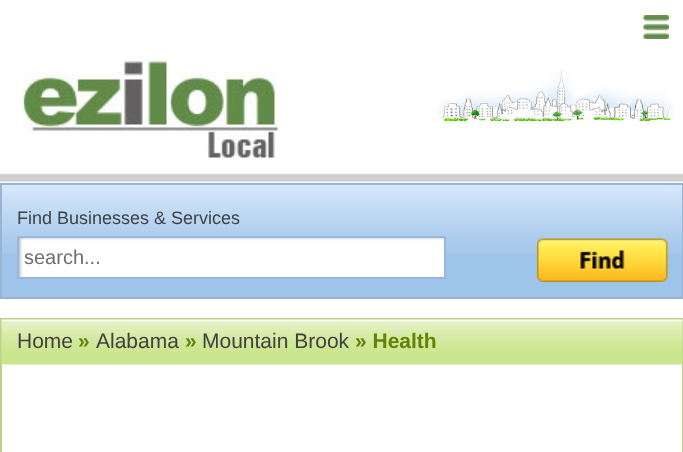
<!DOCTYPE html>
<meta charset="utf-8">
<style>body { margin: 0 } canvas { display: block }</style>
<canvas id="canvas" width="683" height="452"></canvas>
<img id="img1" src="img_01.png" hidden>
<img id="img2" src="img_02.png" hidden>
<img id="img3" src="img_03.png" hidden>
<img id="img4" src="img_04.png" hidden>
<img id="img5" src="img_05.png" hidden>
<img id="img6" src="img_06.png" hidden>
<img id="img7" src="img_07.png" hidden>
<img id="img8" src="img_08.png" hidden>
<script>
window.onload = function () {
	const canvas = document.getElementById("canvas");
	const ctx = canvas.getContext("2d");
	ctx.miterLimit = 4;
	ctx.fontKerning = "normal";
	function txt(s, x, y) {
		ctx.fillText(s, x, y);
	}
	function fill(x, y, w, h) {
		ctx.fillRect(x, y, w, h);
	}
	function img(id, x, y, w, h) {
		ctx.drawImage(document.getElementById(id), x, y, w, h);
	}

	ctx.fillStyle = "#FFFFFF";
	fill(0, 0, 683, 452);
	img("img1", 0, 173, 683, 9);
	img("img2", 438, 70, 236, 55);
	img("img3", 643, 15, 26, 24);
	img("img4", 22, 60, 256, 98);
	ctx.fillStyle = "#9FC4E9";
	fill(2, 254, 680, 43);
	img("img5", 2, 185, 680, 69);
	ctx.strokeStyle = "#97B4D2";
	ctx.lineWidth = 2;
	ctx.strokeRect(1, 184, 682, 114);
	img("img6", 19, 238, 425, 39);
	ctx.strokeStyle = "#97B6E0";
	ctx.strokeRect(18, 237, 427, 41);
	img("img7", 537, 238, 131, 44);
	ctx.strokeStyle = "#BDD18E";
	ctx.strokeRect(1, 319, 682, 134);
	img("img8", 1, 319, 682, 46);
	ctx.font = "18px Liberation Sans";
	ctx.fillStyle = "#414141";
	txt("Find Businesses & Services", 17, 224);
	ctx.font = "20px Liberation Sans";
	ctx.fillStyle = "#6E6E6E";
	txt("search...", 24, 264);
	ctx.font = "21px Liberation Sans";
	ctx.fillStyle = "#414141";
	txt("Home", 17, 348);
	ctx.font = "bold 21px Liberation Sans";
	ctx.fillStyle = "#618407";
	txt("»", 78, 348);
	ctx.font = "21px Liberation Sans";
	ctx.fillStyle = "#414141";
	txt("Alabama", 96, 348);
	ctx.font = "bold 21px Liberation Sans";
	ctx.fillStyle = "#618407";
	txt("»", 185, 348);
	ctx.font = "21px Liberation Sans";
	ctx.fillStyle = "#414141";
	txt("Mountain Brook", 202, 348);
	ctx.font = "bold 21px Liberation Sans";
	ctx.fillStyle = "#618407";
	txt("» Health", 355, 348);
};
</script>
